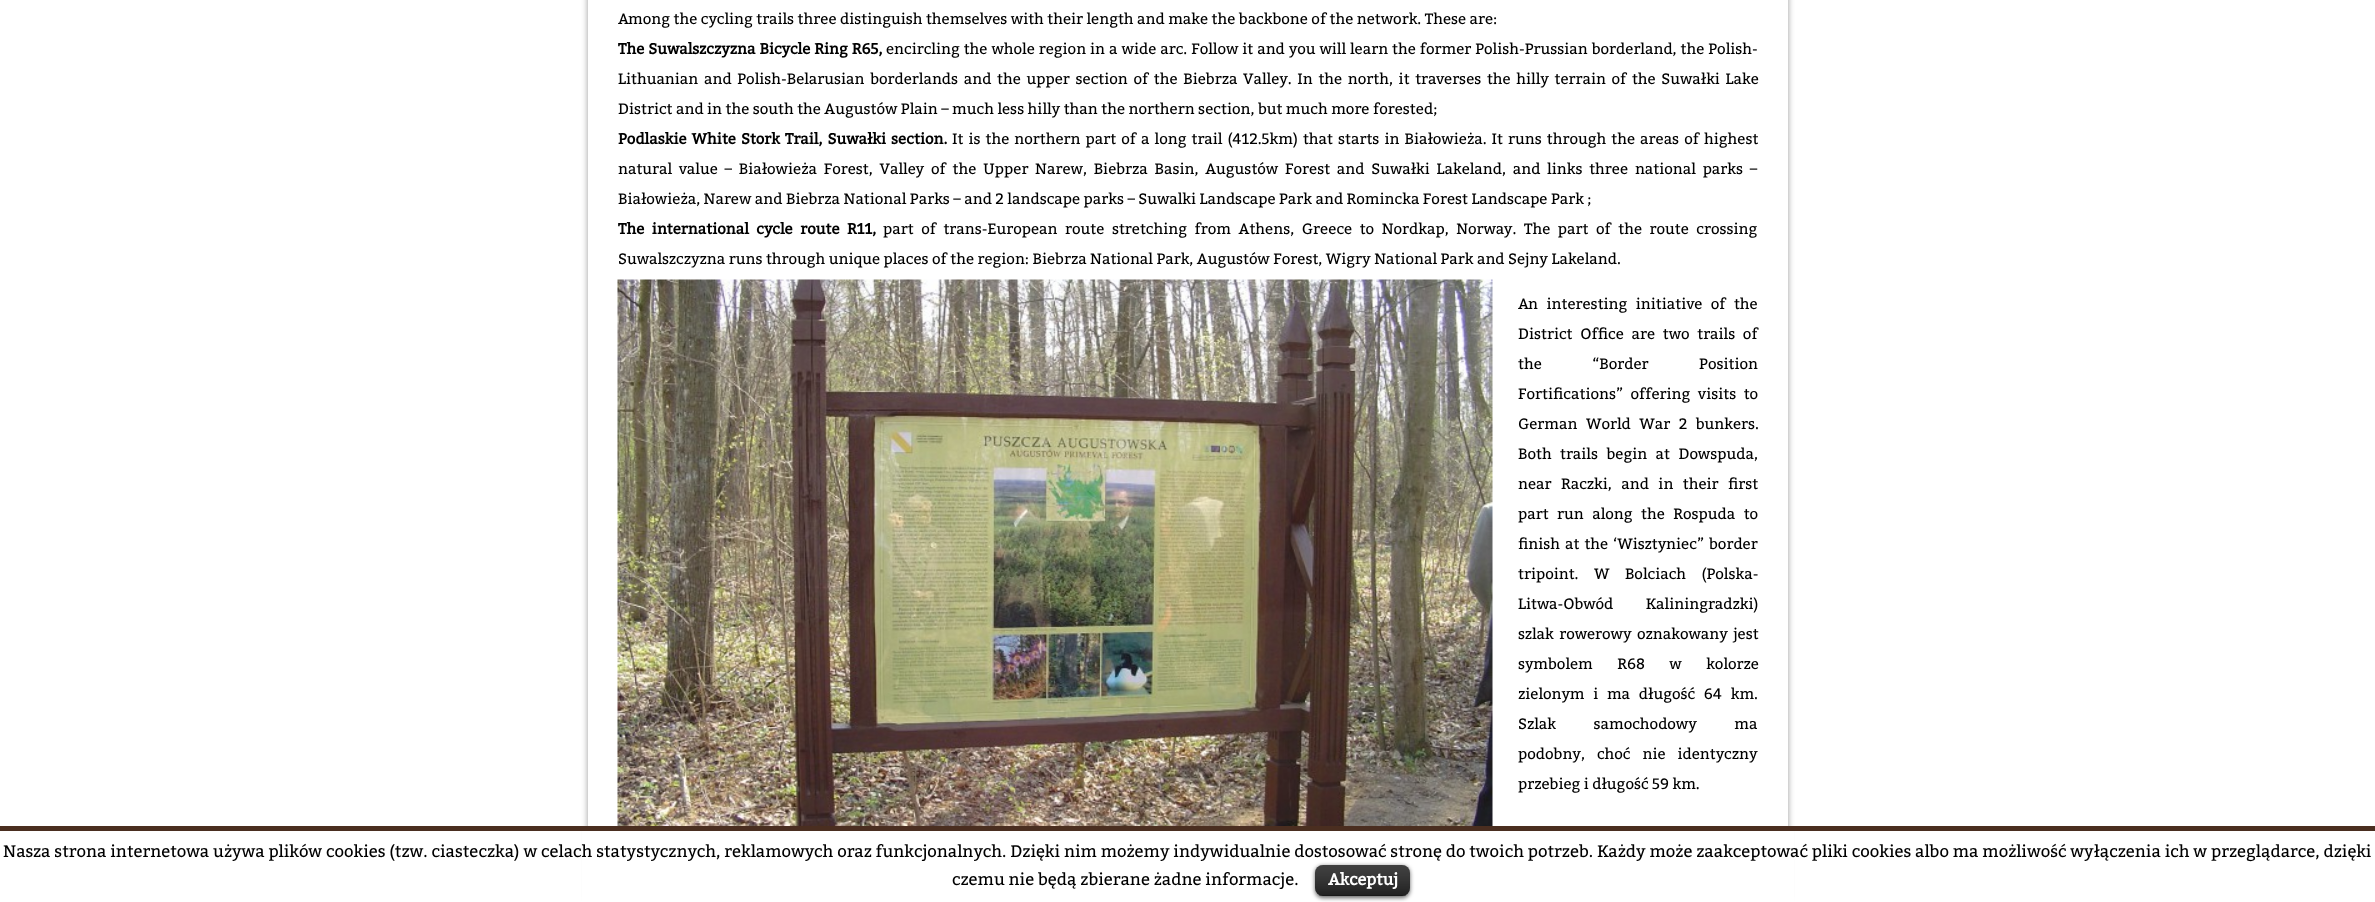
<!DOCTYPE html>
<meta charset="utf-8">
<style>body { margin: 0 } canvas { display: block }</style>
<canvas id="canvas" width="2375" height="902"></canvas>
<img id="img1" src="img_01.png" hidden>
<img id="img2" src="img_02.png" hidden>
<script>
window.onload = function () {
	const canvas = document.getElementById("canvas");
	const ctx = canvas.getContext("2d");
	ctx.miterLimit = 4;
	ctx.fontKerning = "normal";
	function txt(s, x, y) {
		ctx.fillText(s, x, y);
	}
	function fill(x, y, w, h) {
		ctx.fillRect(x, y, w, h);
	}
	function round(x, y, w, h, r) {
		ctx.beginPath();
		ctx.roundRect(x, y, w, h, r);
		ctx.fill();
	}
	function img(id, x, y, w, h) {
		ctx.drawImage(document.getElementById(id), x, y, w, h);
	}

	ctx.fillStyle = "#FFFFFF";
	fill(0, 0, 2375, 902);
	ctx.fillStyle = "rgba(0, 0, 0, 0.4)";
	ctx.filter = "blur(3px)";
	ctx.beginPath();
	ctx.roundRect(588, -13, 1200, 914, 4);
	ctx.fill();
	ctx.filter = "none";
	ctx.fillStyle = "#FFFFFF";
	fill(588, 0, 1200, 826);
	img("img1", 617, 279, 876, 547);
	fill(582, 831, 1212, 71);
	ctx.fillStyle = "#4A2E20";
	fill(0, 826, 2375, 5);
	ctx.fillStyle = "rgba(0, 0, 0, 0.6)";
	ctx.filter = "blur(2px)";
	ctx.beginPath();
	ctx.roundRect(1315, 866, 95, 32, 8);
	ctx.fill();
	ctx.filter = "none";
	ctx.fillStyle = "#000000";
	round(1315, 865, 95, 31, 8);
	img("img2", 1315, 865, 95, 31);
	ctx.fillStyle = "rgba(0, 0, 0, 0.25)";
	fill(1319, 895, 87, 1);
	ctx.font = "15px Bitter";
	ctx.fillStyle = "#000000";
	txt("Among the cycling trails three distinguish themselves with their length and make the backbone of the network. These are:", 618, 24);
	ctx.wordSpacing = "0.5px";
	ctx.font = "bold 15px Bitter";
	txt("The Suwalszczyzna Bicycle Ring R65,", 618, 54);
	ctx.font = "15px Bitter";
	txt("encircling the whole region in a wide arc. Follow it and you will learn the former Polish-Prussian borderland, the Polish-", 886, 54);
	ctx.wordSpacing = "2.2px";
	txt("Lithuanian and Polish-Belarusian borderlands and the upper section of the Biebrza Valley. In the north, it traverses the hilly terrain of the Suwałki Lake", 618, 84);
	ctx.wordSpacing = "0px";
	txt("District and in the south the Augustów Plain – much less hilly than the northern section, but much more forested;", 618, 114);
	ctx.wordSpacing = "1.6px";
	ctx.font = "bold 15px Bitter";
	txt("Podlaskie White Stork Trail, Suwałki section.", 618, 144);
	ctx.font = "15px Bitter";
	txt("It is the northern part of a long trail (412.5km) that starts in Białowieża. It runs through the areas of highest", 952, 144);
	ctx.wordSpacing = "3.3px";
	txt("natural value – Białowieża Forest, Valley of the Upper Narew, Biebrza Basin, Augustów Forest and Suwałki Lakeland, and links three national parks –", 618, 174);
	ctx.wordSpacing = "0px";
	txt("Białowieża, Narew and Biebrza National Parks – and 2 landscape parks – Suwalki Landscape Park and Romincka Forest Landscape Park ;", 618, 204);
	ctx.wordSpacing = "4.1px";
	ctx.font = "bold 15px Bitter";
	txt("The international cycle route R11,", 618, 234);
	ctx.font = "15px Bitter";
	txt("part of trans-European route stretching from Athens, Greece to Nordkap, Norway. The part of the route crossing", 883, 234);
	ctx.wordSpacing = "0px";
	txt("Suwalszczyzna runs through unique places of the region: Biebrza National Park, Augustów Forest, Wigry National Park and Sejny Lakeland.", 618, 264);
	ctx.wordSpacing = "5px";
	txt("An interesting initiative of the", 1518, 309);
	ctx.wordSpacing = "4.25px";
	txt("District Office are two trails of", 1518, 339);
	ctx.wordSpacing = "47px";
	txt("the “Border Position", 1518, 369);
	ctx.wordSpacing = "4px";
	txt("Fortifications” offering visits to", 1518, 399);
	ctx.wordSpacing = "5px";
	txt("German World War 2 bunkers.", 1518, 429);
	txt("Both trails begin at Dowspuda,", 1518, 459);
	ctx.wordSpacing = "6px";
	txt("near Raczki, and in their first", 1518, 489);
	ctx.wordSpacing = "5px";
	txt("part run along the Rospuda to", 1518, 519);
	ctx.wordSpacing = "1.5px";
	txt("finish at the ‘Wisztyniec” border", 1518, 549);
	ctx.wordSpacing = "12px";
	txt("tripoint. W Bolciach (Polska-", 1518, 579);
	ctx.wordSpacing = "29px";
	txt("Litwa-Obwód Kaliningradzki)", 1518, 609);
	ctx.wordSpacing = "2px";
	txt("szlak rowerowy oznakowany jest", 1518, 639);
	ctx.wordSpacing = "21px";
	txt("symbolem R68 w kolorze", 1518, 669);
	ctx.wordSpacing = "5.25px";
	txt("zielonym i ma długość 64 km.", 1518, 699);
	ctx.wordSpacing = "34px";
	txt("Szlak samochodowy ma", 1518, 729);
	ctx.wordSpacing = "8.5px";
	txt("podobny, choć nie identyczny", 1518, 759);
	ctx.wordSpacing = "0px";
	txt("przebieg i długość 59 km.", 1518, 789);
	ctx.font = "16.67px Bitter";
	txt("Nasza strona internetowa używa plików cookies (tzw. ciasteczka) w celach statystycznych, reklamowych oraz funkcjonalnych. Dzięki nim możemy indywidualnie dostosować stronę do twoich potrzeb. Każdy może zaakceptować pliki cookies albo ma możliwość wyłączenia ich w przeglądarce, dzięki", 3, 857);
	txt("czemu nie będą zbierane żadne informacje.", 952, 885);
	ctx.font = "bold 16.25px Bitter";
	ctx.fillStyle = "#FFFFFF";
	txt("Akceptuj", 1328, 885);
};
</script>
